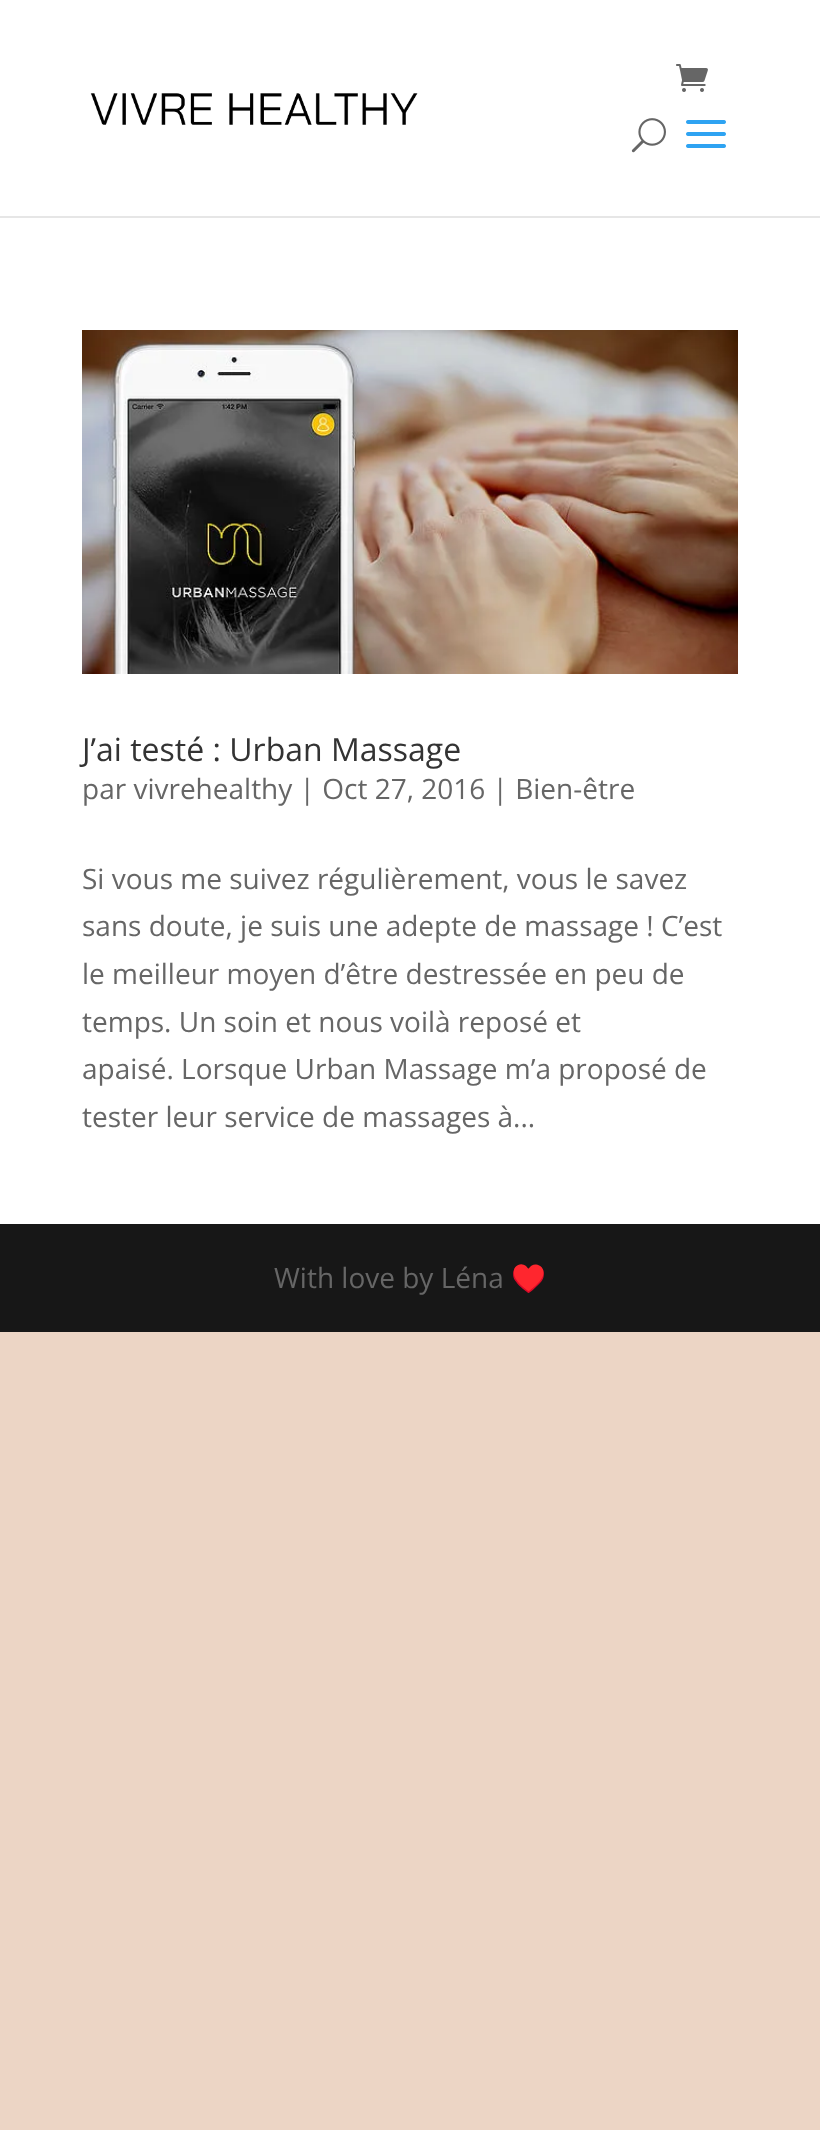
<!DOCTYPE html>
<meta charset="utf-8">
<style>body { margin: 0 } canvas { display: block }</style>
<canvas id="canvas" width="820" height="2130"></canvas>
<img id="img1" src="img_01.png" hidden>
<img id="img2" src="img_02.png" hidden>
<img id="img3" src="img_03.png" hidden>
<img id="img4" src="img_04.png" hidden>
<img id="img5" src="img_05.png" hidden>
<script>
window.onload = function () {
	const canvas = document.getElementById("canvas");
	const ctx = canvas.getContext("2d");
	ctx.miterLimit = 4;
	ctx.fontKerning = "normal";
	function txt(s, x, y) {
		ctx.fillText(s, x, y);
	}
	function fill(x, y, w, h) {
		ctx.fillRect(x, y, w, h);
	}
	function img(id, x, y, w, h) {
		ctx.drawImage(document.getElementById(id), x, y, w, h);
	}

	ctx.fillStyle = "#ECD5C5";
	fill(0, 0, 820, 2130);
	ctx.fillStyle = "#E6E6E6";
	fill(0, 216, 820, 2);
	ctx.fillStyle = "#FFFFFF";
	fill(0, 0, 820, 216);
	img("img1", 90, 93, 328, 32);
	img("img2", 676, 64, 32, 28);
	img("img3", 631, 118, 35, 35);
	img("img4", 686, 120, 40, 28);
	fill(0, 218, 820, 1006);
	img("img5", 82, 330, 656, 344);
	ctx.fillStyle = "#171717";
	fill(0, 1224, 820, 108);
	ctx.font = "32px Open Sans";
	ctx.fillStyle = "#333333";
	txt("J’ai testé : Urban Massage", 82, 761);
	ctx.font = "28px Open Sans";
	ctx.fillStyle = "#666666";
	txt("par vivrehealthy | Oct 27, 2016 | Bien-être", 82, 799);
	txt("Si vous me suivez régulièrement, vous le savez", 82, 889);
	txt("sans doute, je suis une adepte de massage ! C’est", 82, 936);
	txt("le meilleur moyen d’être destressée en peu de", 82, 984);
	txt("temps. Un soin et nous voilà reposé et", 82, 1032);
	txt("apaisé. Lorsque Urban Massage m’a proposé de", 82, 1079);
	txt("tester leur service de massages à...", 82, 1127);
	txt("With love by Léna", 274, 1288);
	ctx.font = "28px Noto Color Emoji";
	txt("♥️", 511, 1288);
};
</script>
